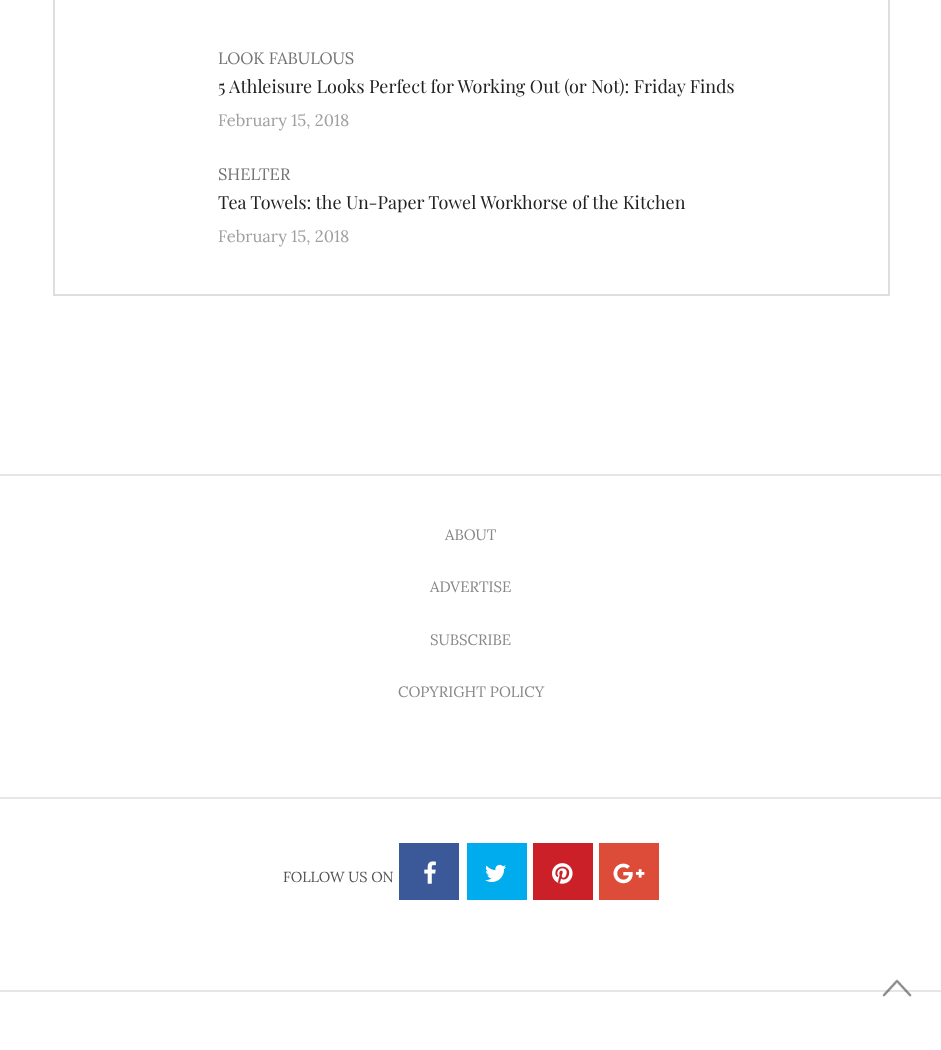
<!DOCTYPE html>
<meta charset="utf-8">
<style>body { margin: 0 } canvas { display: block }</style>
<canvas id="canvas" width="941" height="1050"></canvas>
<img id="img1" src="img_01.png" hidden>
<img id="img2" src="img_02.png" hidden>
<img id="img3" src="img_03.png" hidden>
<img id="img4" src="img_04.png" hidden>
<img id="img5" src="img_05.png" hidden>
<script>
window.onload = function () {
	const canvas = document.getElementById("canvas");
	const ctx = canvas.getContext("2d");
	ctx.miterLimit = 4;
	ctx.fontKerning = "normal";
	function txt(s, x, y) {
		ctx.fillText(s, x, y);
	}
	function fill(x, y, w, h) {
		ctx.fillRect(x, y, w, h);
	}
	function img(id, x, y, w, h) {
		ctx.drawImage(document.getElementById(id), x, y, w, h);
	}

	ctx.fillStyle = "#FFFFFF";
	fill(0, 0, 941, 1050);
	ctx.strokeStyle = "#DEDEDE";
	ctx.lineWidth = 2;
	ctx.strokeRect(54, -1, 835, 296);
	ctx.fillStyle = "#E6E6E6";
	fill(0, 474, 941, 2);
	fill(0, 797, 941, 2);
	ctx.fillStyle = "#3B5998";
	fill(399, 843, 60, 57);
	img("img1", 424, 861, 12, 23);
	ctx.fillStyle = "#00ACED";
	fill(467, 843, 60, 57);
	img("img2", 485, 864, 21, 18);
	ctx.fillStyle = "#CB2027";
	fill(533, 843, 60, 57);
	img("img3", 552, 863, 21, 21);
	ctx.fillStyle = "#DD4B39";
	fill(599, 843, 60, 57);
	img("img4", 613, 863, 32, 21);
	ctx.fillStyle = "#E6E6E6";
	fill(0, 990, 941, 2);
	img("img5", 882, 979, 30, 18);
	ctx.font = "16.5px Lora";
	ctx.fillStyle = "#737373";
	txt("LOOK FABULOUS", 218, 64);
	ctx.font = "18px Playfair Display";
	ctx.fillStyle = "#222222";
	txt("5 Athleisure Looks Perfect for Working Out (or Not): Friday Finds", 218, 93);
	ctx.font = "16.5px Lora";
	ctx.fillStyle = "#A0A0A0";
	txt("February 15, 2018", 218, 126);
	ctx.fillStyle = "#737373";
	txt("SHELTER", 218, 180);
	ctx.font = "18px Playfair Display";
	ctx.fillStyle = "#222222";
	txt("Tea Towels: the Un-Paper Towel Workhorse of the Kitchen", 218, 209);
	ctx.font = "16.5px Lora";
	ctx.fillStyle = "#A0A0A0";
	txt("February 15, 2018", 218, 242);
	ctx.font = "15px Lora";
	ctx.fillStyle = "#878787";
	txt("ABOUT", 445, 540);
	txt("ADVERTISE", 430, 592);
	txt("SUBSCRIBE", 430, 645);
	txt("COPYRIGHT POLICY", 398, 697);
	ctx.font = "14.5px Lora";
	ctx.fillStyle = "#545353";
	txt("FOLLOW US ON", 283, 882);
};
</script>
